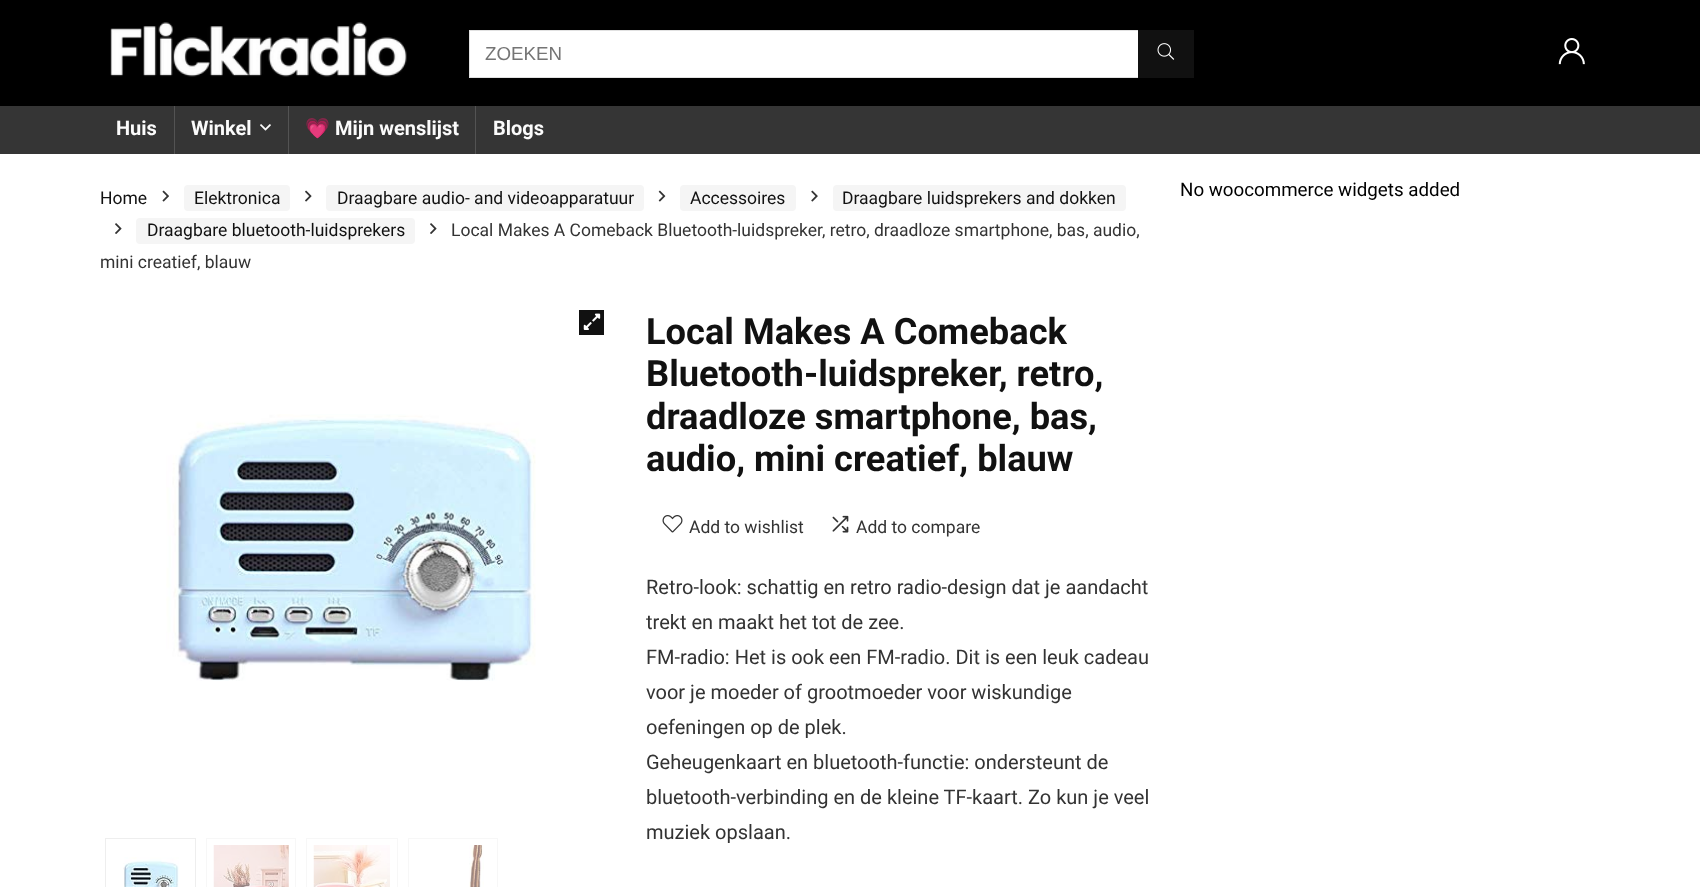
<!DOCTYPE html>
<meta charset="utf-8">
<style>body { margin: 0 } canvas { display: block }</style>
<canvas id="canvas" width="1700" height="887"></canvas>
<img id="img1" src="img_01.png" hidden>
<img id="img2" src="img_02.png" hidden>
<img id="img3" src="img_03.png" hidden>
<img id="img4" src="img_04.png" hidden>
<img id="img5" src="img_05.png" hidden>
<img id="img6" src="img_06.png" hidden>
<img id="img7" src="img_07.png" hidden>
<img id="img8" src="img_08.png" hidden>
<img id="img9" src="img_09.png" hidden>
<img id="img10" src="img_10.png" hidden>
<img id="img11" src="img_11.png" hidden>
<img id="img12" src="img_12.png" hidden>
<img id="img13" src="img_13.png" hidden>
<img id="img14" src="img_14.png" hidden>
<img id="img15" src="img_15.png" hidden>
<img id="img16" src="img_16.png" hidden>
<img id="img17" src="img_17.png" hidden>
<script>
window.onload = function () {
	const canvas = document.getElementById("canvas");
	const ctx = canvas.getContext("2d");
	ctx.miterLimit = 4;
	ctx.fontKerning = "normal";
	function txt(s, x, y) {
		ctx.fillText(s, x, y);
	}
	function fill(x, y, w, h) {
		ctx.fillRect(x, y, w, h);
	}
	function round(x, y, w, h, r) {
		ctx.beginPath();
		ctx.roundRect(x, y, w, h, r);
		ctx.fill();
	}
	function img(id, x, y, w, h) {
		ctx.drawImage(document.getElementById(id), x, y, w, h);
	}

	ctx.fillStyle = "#FFFFFF";
	fill(0, 0, 1700, 887);
	ctx.fillStyle = "#000000";
	fill(0, 0, 1700, 106);
	img("img1", 110, 22, 297, 55);
	ctx.fillStyle = "#FFFFFF";
	fill(470, 31, 668, 46);
	ctx.strokeStyle = "#E1E1E1";
	ctx.strokeRect(469.5, 30.5, 724, 47);
	ctx.fillStyle = "#111111";
	fill(1138, 30, 56, 48);
	img("img2", 1157, 43, 18, 17);
	img("img3", 1558, 38, 27, 27);
	ctx.fillStyle = "#353535";
	fill(0, 106, 1700, 48);
	ctx.fillStyle = "#535353";
	fill(174, 106, 1, 48);
	fill(288, 106, 1, 48);
	img("img4", 260, 124, 11, 7);
	fill(475, 106, 1, 48);
	img("img5", 162, 190, 7, 12);
	ctx.fillStyle = "#F5F5F5";
	round(184, 185, 106, 26, 4);
	img("img6", 305, 190, 7, 12);
	round(326, 185, 318, 26, 4);
	img("img7", 658, 190, 8, 12);
	round(680, 185, 116, 26, 4);
	img("img8", 811, 190, 7, 12);
	round(833, 185, 293, 26, 4);
	img("img9", 115, 223, 7, 11);
	round(136, 218, 279, 26, 4);
	img("img9", 430, 223, 7, 11);
	ctx.fillStyle = "#111111";
	fill(579, 310, 25, 25);
	img("img10", 583, 313, 18, 17);
	img("img11", 166, 414, 370, 267);
	ctx.strokeStyle = "#EEEEEE";
	ctx.strokeRect(105.5, 838.5, 90, 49);
	img("img12", 123, 857, 56, 30);
	ctx.strokeStyle = "#F7F7F7";
	ctx.strokeRect(206.5, 838.5, 89, 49);
	img("img13", 213, 845, 76, 42);
	ctx.strokeRect(306.5, 838.5, 91, 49);
	img("img14", 313, 845, 77, 42);
	ctx.strokeRect(408.5, 838.5, 89, 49);
	img("img15", 469, 845, 15, 42);
	img("img16", 662, 515, 21, 18);
	img("img17", 832, 515, 17, 18);
	ctx.font = "18.75px Liberation Sans";
	ctx.fillStyle = "#757575";
	txt("ZOEKEN", 485, 60);
	ctx.font = "bold 20px Roboto";
	ctx.fillStyle = "#FBFBFB";
	txt("Huis", 116, 135);
	txt("Winkel", 191, 135);
	ctx.font = "bold 20px Noto Color Emoji";
	txt("💗", 305, 135);
	ctx.font = "bold 20px Roboto";
	txt("Mijn wenslijst", 335, 135);
	txt("Blogs", 493, 135);
	ctx.font = "17.5px Roboto";
	ctx.fillStyle = "#111111";
	txt("Home", 100, 204);
	txt("Elektronica", 194, 204);
	txt("Draagbare audio- and videoapparatuur", 337, 204);
	txt("Accessoires", 690, 204);
	txt("Draagbare luidsprekers and dokken", 842, 204);
	txt("Draagbare bluetooth-luidsprekers", 147, 236);
	ctx.fillStyle = "#333333";
	txt("Local Makes A Comeback Bluetooth-luidspreker, retro, draadloze smartphone, bas, audio,", 451, 236);
	txt("mini creatief, blauw", 100, 268);
	ctx.font = "bold 36.25px Roboto";
	ctx.fillStyle = "#111111";
	txt("Local Makes A Comeback", 646, 344);
	txt("Bluetooth-luidspreker, retro,", 646, 386);
	txt("draadloze smartphone, bas,", 646, 429);
	txt("audio, mini creatief, blauw", 646, 471);
	ctx.font = "17.5px Roboto";
	ctx.fillStyle = "#333333";
	txt("Add to wishlist", 689, 533);
	txt("Add to compare", 856, 533);
	ctx.font = "20px Roboto";
	txt("Retro-look: schattig en retro radio-design dat je aandacht", 646, 594);
	txt("trekt en maakt het tot de zee.", 646, 629);
	txt("FM-radio: Het is ook een FM-radio. Dit is een leuk cadeau", 646, 664);
	txt("voor je moeder of grootmoeder voor wiskundige", 646, 699);
	txt("oefeningen op de plek.", 646, 734);
	txt("Geheugenkaart en bluetooth-functie: ondersteunt de", 646, 769);
	txt("bluetooth-verbinding en de kleine TF-kaart. Zo kun je veel", 646, 804);
	txt("muziek opslaan.", 646, 839);
	ctx.font = "18.75px Roboto";
	ctx.fillStyle = "#000000";
	txt("No woocommerce widgets added", 1180, 196);
};
</script>
